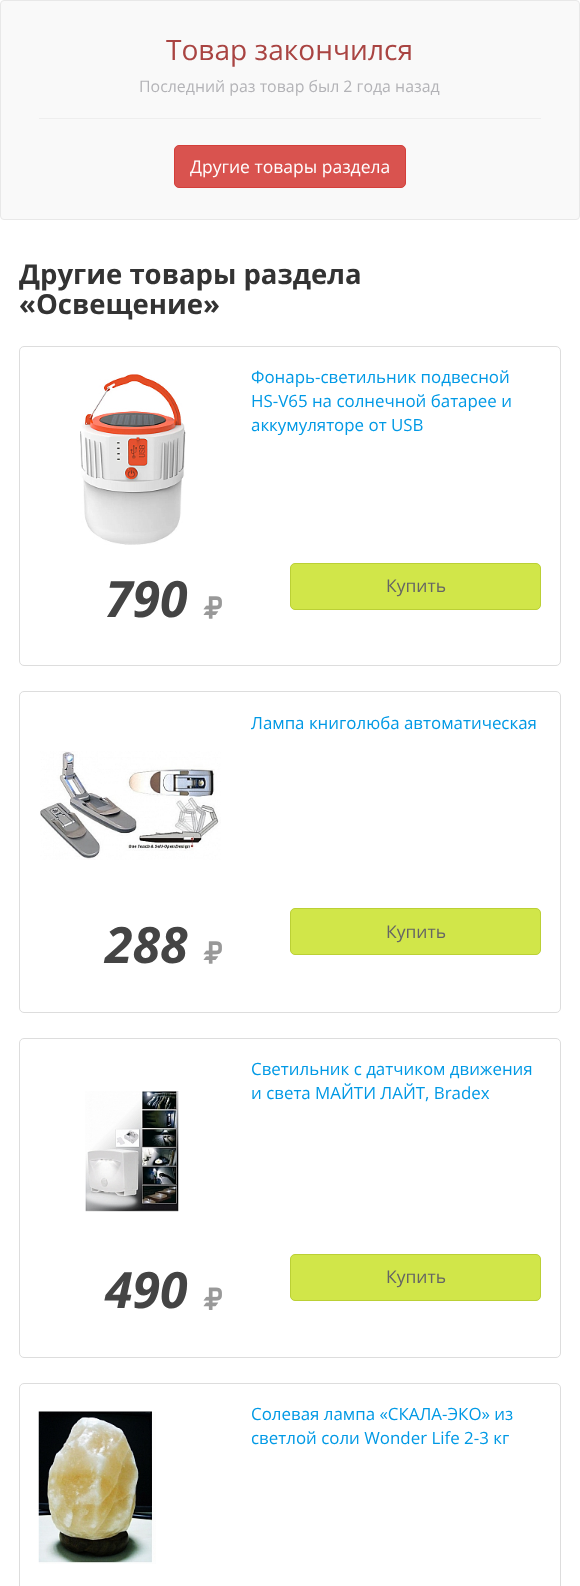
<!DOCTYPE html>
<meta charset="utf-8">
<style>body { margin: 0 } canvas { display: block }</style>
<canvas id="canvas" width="580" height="1586"></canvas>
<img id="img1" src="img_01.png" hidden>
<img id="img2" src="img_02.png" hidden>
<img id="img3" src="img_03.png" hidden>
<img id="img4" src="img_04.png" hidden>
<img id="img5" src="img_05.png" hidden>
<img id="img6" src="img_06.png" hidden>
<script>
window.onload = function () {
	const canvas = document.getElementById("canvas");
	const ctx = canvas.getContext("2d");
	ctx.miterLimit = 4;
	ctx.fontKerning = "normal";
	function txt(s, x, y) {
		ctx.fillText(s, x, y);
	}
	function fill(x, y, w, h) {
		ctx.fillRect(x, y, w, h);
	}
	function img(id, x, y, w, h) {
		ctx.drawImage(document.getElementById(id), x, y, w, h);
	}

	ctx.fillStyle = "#FFFFFF";
	fill(0, 0, 580, 1586);
	ctx.fillStyle = "#F9F9F9";
	ctx.beginPath();
	ctx.roundRect(0.5, 0.5, 579, 219, 3.5);
	ctx.fill();
	ctx.strokeStyle = "#E8E8E8";
	ctx.stroke();
	ctx.fillStyle = "#EEEEEE";
	fill(39, 118, 502, 1);
	ctx.fillStyle = "#D9534F";
	ctx.beginPath();
	ctx.roundRect(174.5, 145.5, 231, 42, 4.5);
	ctx.fill();
	ctx.strokeStyle = "#D43F3A";
	ctx.stroke();
	ctx.beginPath();
	ctx.roundRect(19.5, 346.5, 541, 319, 4.5);
	ctx.strokeStyle = "#DDDDDD";
	ctx.stroke();
	img("img1", 80, 374, 106, 171);
	img("img2", 203, 596, 19, 23);
	ctx.fillStyle = "#D1E649";
	ctx.beginPath();
	ctx.roundRect(290.5, 563.5, 250, 46, 4.5);
	ctx.fill();
	ctx.strokeStyle = "#BBD035";
	ctx.stroke();
	ctx.beginPath();
	ctx.roundRect(19.5, 691.5, 541, 321, 4.5);
	ctx.strokeStyle = "#DDDDDD";
	ctx.stroke();
	img("img3", 40, 751, 181, 109);
	img("img2", 203, 941, 19, 23);
	ctx.beginPath();
	ctx.roundRect(290.5, 908.5, 250, 46, 4.5);
	ctx.fill();
	ctx.strokeStyle = "#BBD035";
	ctx.stroke();
	ctx.beginPath();
	ctx.roundRect(19.5, 1038.5, 541, 319, 4.5);
	ctx.strokeStyle = "#DDDDDD";
	ctx.stroke();
	img("img4", 85, 1091, 94, 121);
	img("img5", 203, 1287, 19, 23);
	ctx.beginPath();
	ctx.roundRect(290.5, 1254.5, 250, 46, 4.5);
	ctx.fill();
	ctx.strokeStyle = "#BBD035";
	ctx.stroke();
	ctx.beginPath();
	ctx.roundRect(19.5, 1383.5, 541, 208, 4.5);
	ctx.strokeStyle = "#DDDDDD";
	ctx.stroke();
	img("img6", 38, 1411, 118, 153);
	ctx.font = "28.1px Open Sans";
	ctx.fillStyle = "#A94442";
	txt("Товар закончился", 166, 60);
	ctx.font = "15.9px Open Sans";
	ctx.fillStyle = "#B3B3B7";
	txt("Последний раз товар был 2 года назад", 139, 92);
	ctx.font = "17.5px Open Sans";
	ctx.fillStyle = "#FFFFFF";
	txt("Другие товары раздела", 190, 173);
	ctx.font = "bold 27.5px Open Sans";
	ctx.fillStyle = "#333333";
	txt("Другие товары раздела", 19, 284);
	txt("«Освещение»", 19, 314);
	ctx.font = "16.9px Open Sans";
	ctx.fillStyle = "#0099E5";
	txt("Фонарь-светильник подвесной", 251, 383);
	txt("HS-V65 на солнечной батарее и", 251, 407);
	txt("аккумуляторе от USB", 251, 431);
	ctx.font = "italic bold 50px Open Sans";
	ctx.fillStyle = "#444444";
	txt("790", 105, 617);
	ctx.font = "17.5px Open Sans";
	ctx.fillStyle = "#656565";
	txt("Купить", 386, 592);
	ctx.font = "16.9px Open Sans";
	ctx.fillStyle = "#0099E5";
	txt("Лампа книголюба автоматическая", 251, 729);
	ctx.font = "italic bold 50px Open Sans";
	ctx.fillStyle = "#444444";
	txt("288", 105, 963);
	ctx.font = "17.5px Open Sans";
	ctx.fillStyle = "#656565";
	txt("Купить", 386, 938);
	ctx.font = "16.9px Open Sans";
	ctx.fillStyle = "#0099E5";
	txt("Светильник с датчиком движения", 251, 1075);
	txt("и света МАЙТИ ЛАЙТ, Bradex", 251, 1099);
	ctx.font = "italic bold 50px Open Sans";
	ctx.fillStyle = "#444444";
	txt("490", 105, 1308);
	ctx.font = "17.5px Open Sans";
	ctx.fillStyle = "#656565";
	txt("Купить", 386, 1283);
	ctx.font = "16.9px Open Sans";
	ctx.fillStyle = "#0099E5";
	txt("Солевая лампа «СКАЛА-ЭКО» из", 251, 1420);
	txt("светлой соли Wonder Life 2-3 кг", 251, 1444);
};
</script>
